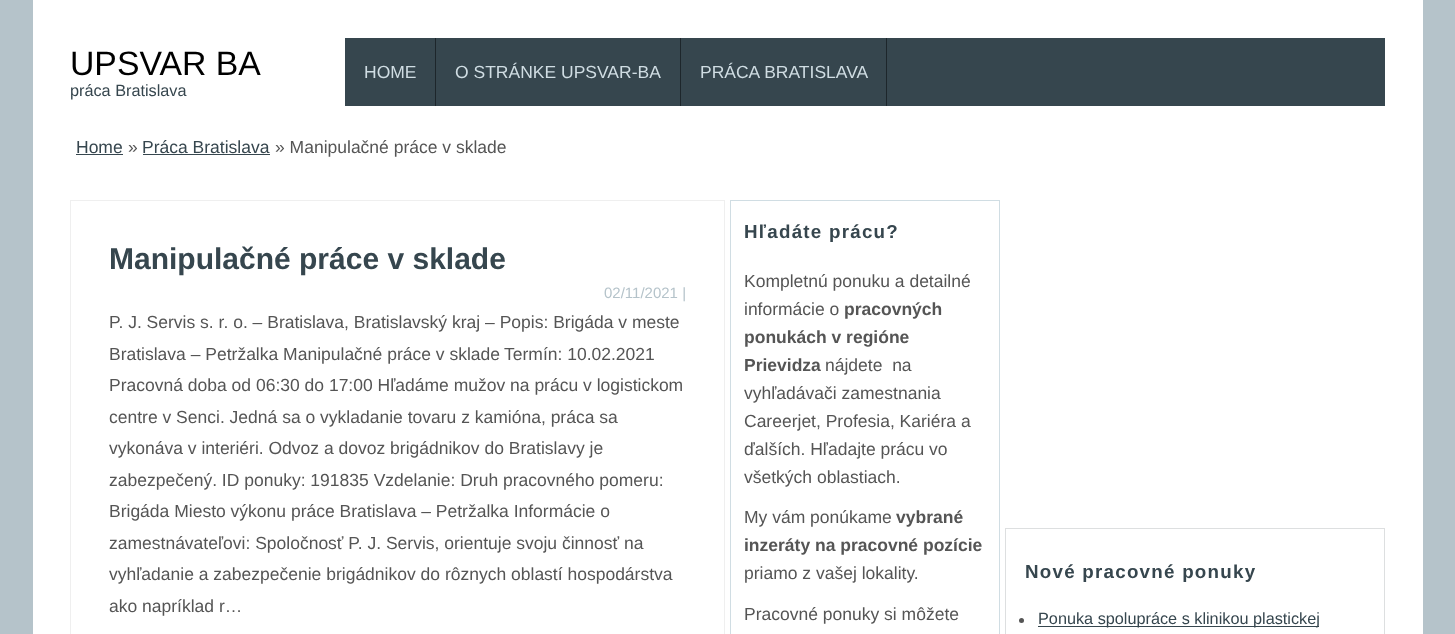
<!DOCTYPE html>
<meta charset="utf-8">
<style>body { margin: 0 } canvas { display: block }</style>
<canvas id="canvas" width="1455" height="634"></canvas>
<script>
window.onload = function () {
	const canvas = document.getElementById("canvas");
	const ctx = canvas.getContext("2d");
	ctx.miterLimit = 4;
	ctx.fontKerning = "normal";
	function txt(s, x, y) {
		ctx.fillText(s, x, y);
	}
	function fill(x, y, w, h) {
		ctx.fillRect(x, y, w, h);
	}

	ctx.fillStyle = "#B5C3CA";
	fill(0, 0, 1455, 634);
	ctx.fillStyle = "#FFFFFF";
	fill(33, 0, 1390, 634);
	ctx.fillStyle = "#36464E";
	fill(345, 38, 1040, 68);
	ctx.fillStyle = "#1D262B";
	fill(435, 38, 1, 68);
	fill(680, 38, 1, 68);
	fill(886, 38, 1, 68);
	ctx.fillStyle = "#36464E";
	fill(76, 154, 47, 1);
	fill(143, 154, 127, 1);
	ctx.strokeStyle = "#EFEFEF";
	ctx.strokeRect(70.5, 200.5, 654, 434);
	ctx.strokeStyle = "#D0DDE3";
	ctx.strokeRect(730.5, 200.5, 269, 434);
	ctx.strokeStyle = "#DDDFE0";
	ctx.strokeRect(1005.5, 528.5, 379, 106);
	ctx.fillStyle = "#555555";
	ctx.beginPath();
	ctx.arc(1021.5, 620.5, 2.5, 0, Math.PI * 2);
	ctx.fill();
	ctx.fillStyle = "#36464E";
	fill(1038, 626, 281, 1);
	ctx.font = "33.75px Liberation Sans";
	ctx.fillStyle = "#000000";
	txt("UPSVAR BA", 70, 75);
	ctx.font = "16.25px Liberation Sans";
	ctx.fillStyle = "#36464E";
	txt("práca Bratislava", 70, 96);
	ctx.font = "17.5px Liberation Sans";
	ctx.fillStyle = "#D0DDE3";
	txt("HOME", 364, 78);
	txt("O STRÁNKE UPSVAR-BA", 455, 78);
	txt("PRÁCA BRATISLAVA", 700, 78);
	ctx.fillStyle = "#36464E";
	txt("Home", 76, 153);
	ctx.fillStyle = "#555555";
	txt("»", 128, 153);
	ctx.fillStyle = "#36464E";
	txt("Práca Bratislava", 142, 153);
	ctx.fillStyle = "#555555";
	txt("» Manipulačné práce v sklade", 275, 153);
	ctx.font = "bold 30px Liberation Sans";
	ctx.fillStyle = "#36464E";
	txt("Manipulačné práce v sklade", 109, 269);
	ctx.font = "15px Liberation Sans";
	ctx.fillStyle = "#B5C3CA";
	txt("02/11/2021 |", 604, 298);
	ctx.font = "17.5px Liberation Sans";
	ctx.fillStyle = "#555555";
	txt("P. J. Servis s. r. o. – Bratislava, Bratislavský kraj – Popis: Brigáda v meste", 109, 328);
	txt("Bratislava – Petržalka Manipulačné práce v sklade", 109, 360);
	txt("Termín: 10.02.2021", 504, 360);
	txt("Pracovná doba od 06:30 do 17:00 Hľadáme mužov na prácu v logistickom", 109, 391);
	txt("centre v Senci. Jedná sa o vykladanie tovaru z kamióna, práca sa", 109, 423);
	txt("vykonáva v interiéri. Odvoz a dovoz brigádnikov do Bratislavy je", 109, 454);
	txt("zabezpečený. ID ponuky: 191835 Vzdelanie: Druh pracovného pomeru:", 109, 486);
	txt("Brigáda Miesto výkonu práce Bratislava – Petržalka Informácie o", 109, 517);
	txt("zamestnávateľovi: Spoločnosť P. J. Servis, orientuje svoju činnosť na", 109, 549);
	txt("vyhľadanie a zabezpečenie brigádnikov do rôznych oblastí hospodárstva", 109, 580);
	txt("ako napríklad r…", 109, 612);
	ctx.letterSpacing = "1.25px";
	ctx.font = "bold 18.75px Liberation Sans";
	ctx.fillStyle = "#36464E";
	txt("Hľadáte prácu?", 744, 238);
	ctx.letterSpacing = "0px";
	ctx.font = "17.5px Liberation Sans";
	ctx.fillStyle = "#555555";
	txt("Kompletnú ponuku a detailné", 744, 287);
	txt("informácie o", 744, 315);
	ctx.font = "bold 17.5px Liberation Sans";
	txt("pracovných", 844, 315);
	txt("ponukách v regióne", 744, 343);
	txt("Prievidza", 744, 371);
	ctx.font = "17.5px Liberation Sans";
	txt("nájdete  na", 825, 371);
	txt("vyhľadávači zamestnania", 744, 399);
	txt("Careerjet, Profesia, Kariéra a", 744, 427);
	txt("ďalších. Hľadajte prácu vo", 744, 455);
	txt("všetkých oblastiach.", 744, 483);
	txt("My vám ponúkame", 744, 523);
	ctx.font = "bold 17.5px Liberation Sans";
	txt("vybrané", 896, 523);
	txt("inzeráty na pracovné pozície", 744, 551);
	ctx.font = "17.5px Liberation Sans";
	txt("priamo z vašej lokality.", 744, 579);
	txt("Pracovné ponuky si môžete", 744, 620);
	ctx.letterSpacing = "1.25px";
	ctx.font = "bold 18.75px Liberation Sans";
	ctx.fillStyle = "#36464E";
	txt("Nové pracovné ponuky", 1025, 578);
	ctx.letterSpacing = "0px";
	ctx.font = "16.25px Liberation Sans";
	txt("Ponuka spolupráce s klinikou plastickej", 1038, 624);
};
</script>
